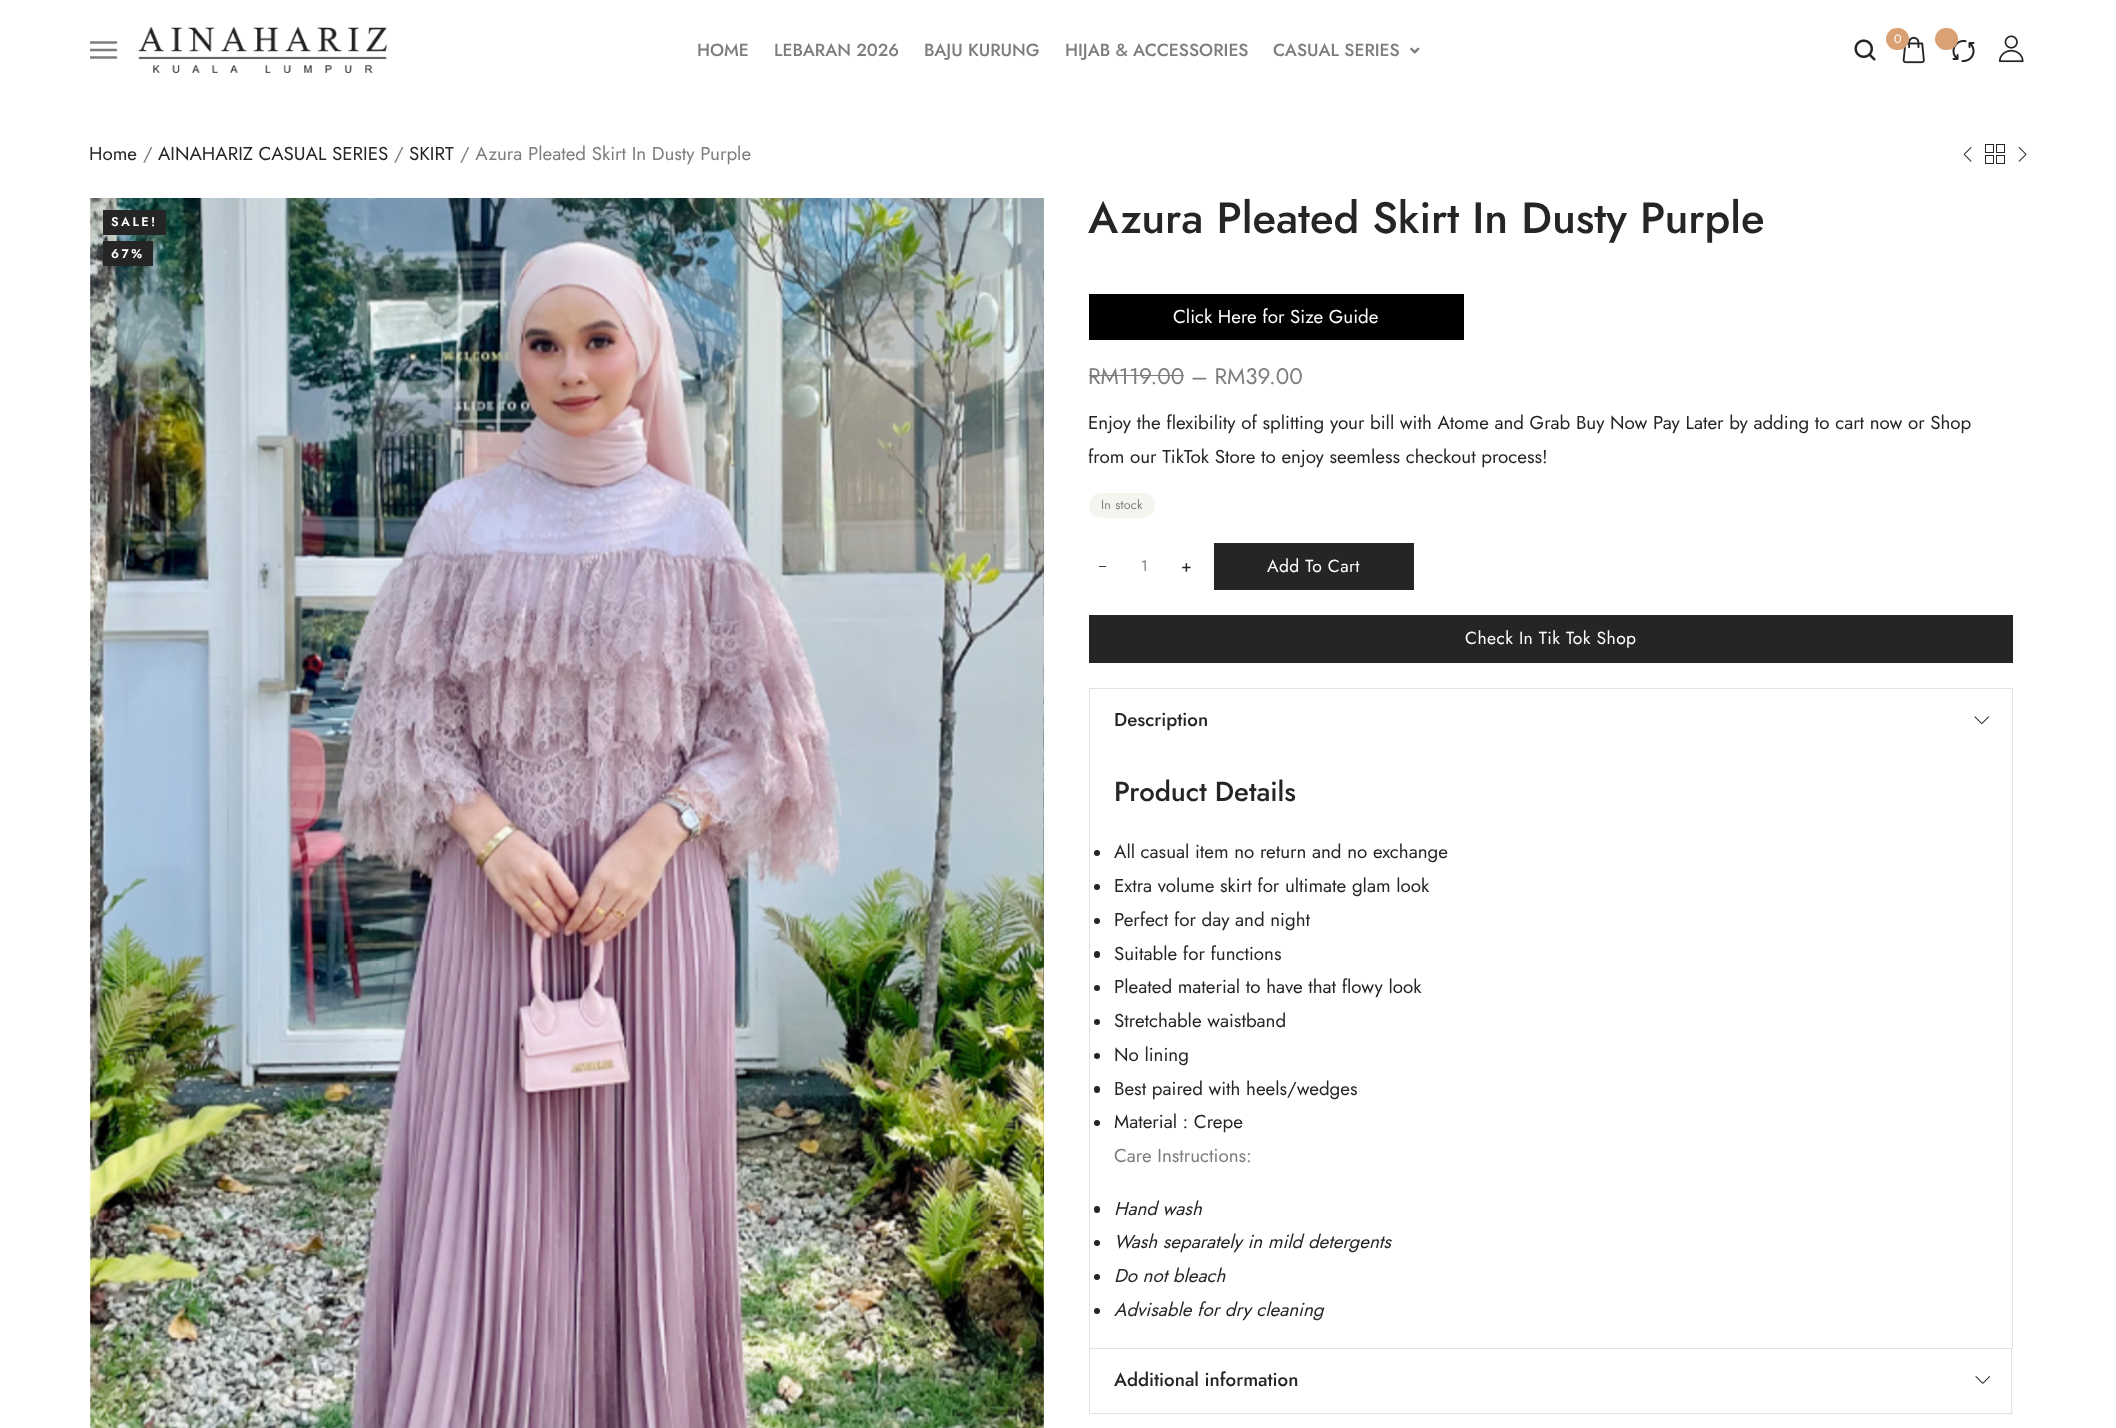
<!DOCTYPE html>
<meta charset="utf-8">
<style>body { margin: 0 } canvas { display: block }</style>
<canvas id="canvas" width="2116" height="1428"></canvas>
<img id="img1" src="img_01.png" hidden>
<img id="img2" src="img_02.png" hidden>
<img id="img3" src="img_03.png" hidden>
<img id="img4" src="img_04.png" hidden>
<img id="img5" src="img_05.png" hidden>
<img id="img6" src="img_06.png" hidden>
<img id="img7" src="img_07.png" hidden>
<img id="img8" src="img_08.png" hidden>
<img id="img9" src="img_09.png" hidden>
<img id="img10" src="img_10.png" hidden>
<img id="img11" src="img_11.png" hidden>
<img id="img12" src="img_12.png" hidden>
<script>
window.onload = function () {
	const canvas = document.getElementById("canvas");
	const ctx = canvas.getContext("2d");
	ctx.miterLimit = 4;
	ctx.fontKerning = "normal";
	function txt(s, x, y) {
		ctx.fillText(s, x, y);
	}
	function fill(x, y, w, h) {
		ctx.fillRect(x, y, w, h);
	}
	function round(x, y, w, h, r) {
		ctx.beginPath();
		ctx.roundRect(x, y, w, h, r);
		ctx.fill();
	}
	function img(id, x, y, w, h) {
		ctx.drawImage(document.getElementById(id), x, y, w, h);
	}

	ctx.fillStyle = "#FFFFFF";
	fill(0, 0, 2116, 1428);
	ctx.save();
	ctx.beginPath();
	ctx.rect(90, 35, 30, 30);
	ctx.clip();
	ctx.beginPath();
	ctx.moveTo(90, 50);
	ctx.lineTo(116, 50);
	ctx.moveTo(90, 42.5);
	ctx.lineTo(116, 42.5);
	ctx.moveTo(90, 57.5);
	ctx.lineTo(116, 57.5);
	ctx.strokeStyle = "#7D7D7D";
	ctx.lineWidth = 2.5;
	ctx.lineCap = "round";
	ctx.lineJoin = "round";
	ctx.stroke();
	ctx.restore();
	img("img1", 138, 27, 249, 46);
	img("img2", 1854, 39, 22, 22);
	img("img3", 1902, 36, 23, 28);
	ctx.fillStyle = "#DAA174";
	round(1886, 28, 23, 22, 11);
	img("img4", 1952, 40, 23, 23);
	round(1935, 28, 23, 22, 11);
	img("img5", 1998, 35, 26, 28);
	img("img6", 1410, 47, 10, 7);
	img("img7", 1963, 147, 9, 15);
	ctx.strokeStyle = "#252525";
	ctx.strokeRect(1985.5, 144.5, 8, 8);
	ctx.strokeRect(1985.5, 155.5, 8, 8);
	ctx.strokeRect(1996.5, 144.5, 8, 8);
	ctx.strokeRect(1996.5, 155.5, 8, 8);
	img("img8", 2018, 147, 9, 15);
	img("img9", 90, 198, 954, 1230);
	img("img10", 1043, 198, 1, 1230);
	ctx.fillStyle = "#252525";
	fill(103, 210, 63, 25);
	fill(103, 241, 50, 25);
	ctx.fillStyle = "#000000";
	fill(1089, 294, 375, 46);
	ctx.fillStyle = "#7D7D7D";
	fill(1089, 375, 95, 1);
	ctx.fillStyle = "#F5F4EE";
	round(1089, 493, 66, 25, 12.5);
	ctx.fillStyle = "#343434";
	fill(1099, 566, 7, 1);
	ctx.fillStyle = "#252525";
	fill(1214, 543, 200, 47);
	fill(1089, 615, 924, 48);
	ctx.strokeStyle = "#E2E2E2";
	ctx.strokeRect(1089.5, 688.5, 923, 660);
	img("img11", 1974, 716, 15, 8);
	ctx.beginPath();
	ctx.arc(1097, 853, 3, 0, Math.PI * 2);
	ctx.fill();
	ctx.beginPath();
	ctx.arc(1097, 887, 3, 0, Math.PI * 2);
	ctx.fill();
	ctx.beginPath();
	ctx.arc(1097, 921, 3, 0, Math.PI * 2);
	ctx.fill();
	round(1094, 951, 6, 7, 3);
	ctx.beginPath();
	ctx.arc(1097, 988, 3, 0, Math.PI * 2);
	ctx.fill();
	ctx.beginPath();
	ctx.arc(1097, 1022, 3, 0, Math.PI * 2);
	ctx.fill();
	ctx.beginPath();
	ctx.arc(1097, 1056, 3, 0, Math.PI * 2);
	ctx.fill();
	round(1094, 1086, 6, 7, 3);
	ctx.beginPath();
	ctx.arc(1097, 1123, 3, 0, Math.PI * 2);
	ctx.fill();
	round(1094, 1206, 6, 7, 3);
	ctx.beginPath();
	ctx.arc(1097, 1243, 3, 0, Math.PI * 2);
	ctx.fill();
	ctx.beginPath();
	ctx.arc(1097, 1277, 3, 0, Math.PI * 2);
	ctx.fill();
	ctx.beginPath();
	ctx.arc(1097, 1311, 3, 0, Math.PI * 2);
	ctx.fill();
	ctx.fillStyle = "#E2E2E2";
	fill(2011, 1349, 1, 65);
	fill(1089, 1413, 924, 1);
	fill(1089, 1349, 1, 65);
	img("img12", 1975, 1376, 15, 8);
	ctx.font = "12.5px Jost";
	ctx.fillStyle = "#FFFFFF";
	txt("0", 1894, 43);
	ctx.font = "500 17.5px Jost";
	ctx.fillStyle = "#7D7D7D";
	txt("HOME", 697, 56);
	txt("LEBARAN 2026", 774, 56);
	txt("BAJU KURUNG", 924, 56);
	txt("HIJAB & ACCESSORIES", 1065, 56);
	txt("CASUAL SERIES", 1273, 56);
	ctx.font = "18.75px Jost";
	ctx.fillStyle = "#252525";
	txt("Home", 89, 160);
	ctx.fillStyle = "#7D7D7D";
	txt("/", 143, 160);
	ctx.fillStyle = "#252525";
	txt("AINAHARIZ CASUAL SERIES", 158, 160);
	ctx.fillStyle = "#7D7D7D";
	txt("/", 394, 160);
	ctx.fillStyle = "#252525";
	txt("SKIRT", 409, 160);
	ctx.fillStyle = "#7D7D7D";
	txt("/ Azura Pleated Skirt In Dusty Purple", 460, 160);
	ctx.letterSpacing = "2.5px";
	ctx.font = "600 12.5px Jost";
	ctx.fillStyle = "#FFFFFF";
	txt("SALE!", 111, 226);
	txt("67%", 111, 258);
	ctx.letterSpacing = "0px";
	ctx.font = "500 43.75px Jost";
	ctx.fillStyle = "#252525";
	txt("Azura Pleated Skirt In Dusty Purple", 1088, 233);
	ctx.font = "18.75px Jost";
	ctx.fillStyle = "#FFFFFF";
	txt("Click Here for Size Guide", 1173, 323);
	ctx.font = "22.5px Jost";
	ctx.fillStyle = "#7D7D7D";
	txt("RM119.00", 1088, 384);
	txt("– RM39.00", 1191, 384);
	ctx.font = "18.75px Jost";
	ctx.fillStyle = "#252525";
	txt("Enjoy the flexibility of splitting your bill with Atome and Grab Buy Now Pay Later by adding to cart now or Shop", 1088, 429);
	txt("from our TikTok Store to enjoy seemless checkout process!", 1088, 463);
	ctx.letterSpacing = "0.25px";
	ctx.font = "12.5px Jost";
	ctx.fillStyle = "#7D7D7D";
	txt("In stock", 1101, 509);
	ctx.letterSpacing = "0px";
	ctx.font = "15px Jost";
	txt("1", 1141, 571);
	ctx.font = "17.5px Jost";
	ctx.fillStyle = "#252525";
	txt("+", 1181, 572);
	ctx.letterSpacing = "0.4px";
	ctx.fillStyle = "#FFFFFF";
	txt("Add To Cart", 1267, 572);
	txt("Check In Tik Tok Shop", 1465, 644);
	ctx.letterSpacing = "0px";
	ctx.font = "500 18.75px Jost";
	ctx.fillStyle = "#252525";
	txt("Description", 1114, 726);
	ctx.font = "500 27.5px Jost";
	txt("Product Details", 1114, 801);
	ctx.font = "18.75px Jost";
	txt("All casual item no return and no exchange", 1114, 858);
	txt("Extra volume skirt for ultimate glam look", 1114, 892);
	txt("Perfect for day and night", 1114, 926);
	txt("Suitable for functions", 1114, 960);
	txt("Pleated material to have that flowy look", 1114, 993);
	txt("Stretchable waistband", 1114, 1027);
	txt("No lining", 1114, 1061);
	txt("Best paired with heels/wedges", 1114, 1095);
	txt("Material : Crepe", 1114, 1128);
	ctx.fillStyle = "#7D7D7D";
	txt("Care Instructions:", 1114, 1162);
	ctx.font = "italic 18.75px Jost";
	ctx.fillStyle = "#252525";
	txt("Hand wash", 1114, 1215);
	txt("Wash separately in mild detergents", 1114, 1248);
	txt("Do not bleach", 1114, 1282);
	txt("Advisable for dry cleaning", 1114, 1316);
	ctx.font = "500 18.75px Jost";
	txt("Additional information", 1114, 1386);
};
</script>
